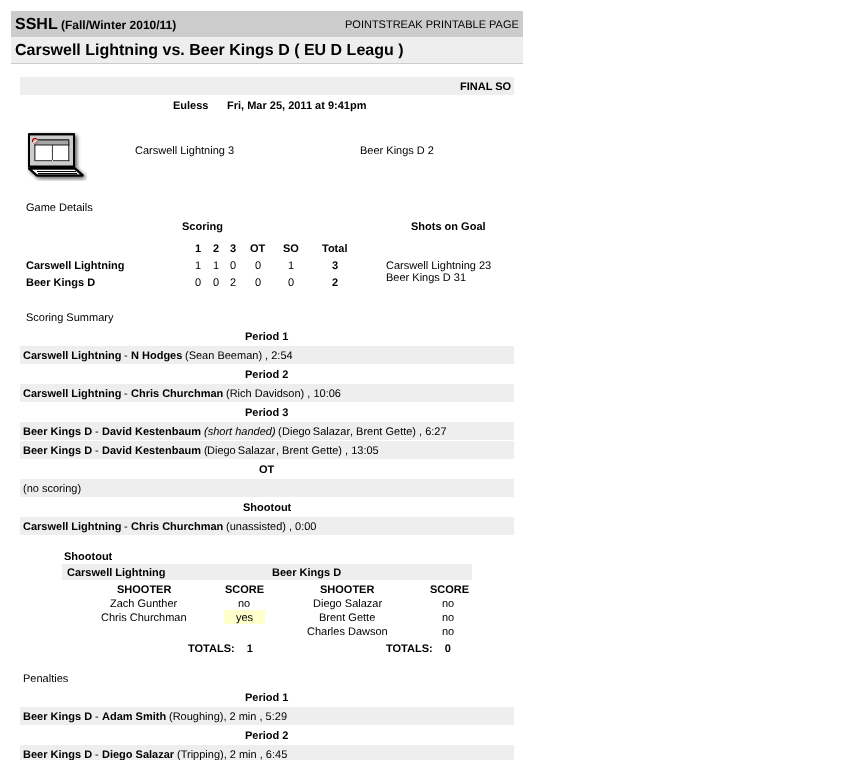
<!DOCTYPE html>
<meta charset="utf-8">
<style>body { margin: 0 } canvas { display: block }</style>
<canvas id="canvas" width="858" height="760"></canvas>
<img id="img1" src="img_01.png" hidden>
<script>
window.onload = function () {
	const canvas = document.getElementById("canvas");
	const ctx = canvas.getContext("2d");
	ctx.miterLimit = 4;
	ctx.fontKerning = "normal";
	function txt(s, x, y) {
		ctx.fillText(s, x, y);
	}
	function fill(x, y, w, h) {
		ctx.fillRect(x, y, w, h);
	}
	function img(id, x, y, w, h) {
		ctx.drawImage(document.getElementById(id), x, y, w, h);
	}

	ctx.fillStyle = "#FFFFFF";
	fill(0, 0, 858, 760);
	ctx.fillStyle = "#CCCCCC";
	fill(11, 11, 512, 26);
	ctx.fillStyle = "#EEEEEE";
	fill(11, 37, 512, 26);
	ctx.fillStyle = "#CCCCCC";
	fill(11, 63, 512, 1);
	ctx.fillStyle = "#EEEEEE";
	fill(20, 77, 494, 18);
	img("img1", 26, 131, 61, 50);
	fill(20, 346, 494, 18);
	fill(20, 384, 494, 18);
	fill(20, 422, 494, 18);
	fill(20, 441, 494, 18);
	fill(20, 479, 494, 18);
	fill(20, 517, 494, 18);
	fill(62, 564, 410, 16);
	ctx.fillStyle = "#FFFFCC";
	fill(224, 610, 41, 14);
	ctx.fillStyle = "#EEEEEE";
	fill(20, 707, 494, 18);
	fill(20, 745, 494, 15);
	ctx.font = "bold 16px Liberation Sans";
	ctx.fillStyle = "#000000";
	txt("SSHL", 15, 29);
	ctx.font = "bold 12px Liberation Sans";
	txt("(Fall/Winter 2010/11)", 61, 29);
	ctx.font = "11px Liberation Sans";
	txt("POINTSTREAK PRINTABLE PAGE", 345, 28);
	ctx.font = "bold 16px Liberation Sans";
	txt("Carswell Lightning vs. Beer Kings D ( EU D Leagu )", 15, 55);
	ctx.font = "bold 11px Liberation Sans";
	txt("FINAL SO", 460, 90);
	txt("Euless", 173, 109);
	txt("Fri, Mar 25, 2011 at 9:41pm", 227, 109);
	ctx.font = "11px Liberation Sans";
	txt("Carswell Lightning 3", 135, 154);
	txt("Beer Kings D 2", 360, 154);
	txt("Game Details", 26, 211);
	ctx.font = "bold 11px Liberation Sans";
	txt("Scoring", 182, 230);
	txt("Shots on Goal", 411, 230);
	txt("1", 195, 252);
	txt("2", 213, 252);
	txt("3", 230, 252);
	txt("OT", 250, 252);
	txt("SO", 283, 252);
	txt("Total", 322, 252);
	txt("Carswell Lightning", 26, 269);
	ctx.font = "11px Liberation Sans";
	txt("1", 195, 269);
	txt("1", 213, 269);
	txt("0", 230, 269);
	txt("0", 255, 269);
	txt("1", 288, 269);
	ctx.font = "bold 11px Liberation Sans";
	txt("3", 332, 269);
	txt("Beer Kings D", 26, 286);
	ctx.font = "11px Liberation Sans";
	txt("0", 195, 286);
	txt("0", 213, 286);
	txt("2", 230, 286);
	txt("0", 255, 286);
	txt("0", 288, 286);
	ctx.font = "bold 11px Liberation Sans";
	txt("2", 332, 286);
	ctx.font = "11px Liberation Sans";
	txt("Carswell Lightning 23", 386, 269);
	txt("Beer Kings D 31", 386, 281);
	txt("Scoring Summary", 26, 321);
	ctx.font = "bold 11px Liberation Sans";
	txt("Period 1", 245, 340);
	txt("Carswell Lightning", 23, 359);
	ctx.font = "11px Liberation Sans";
	txt("-", 124, 359);
	ctx.font = "bold 11px Liberation Sans";
	txt("N Hodges", 131, 359);
	ctx.font = "11px Liberation Sans";
	txt("(Sean Beeman) , 2:54", 185, 359);
	ctx.font = "bold 11px Liberation Sans";
	txt("Period 2", 245, 378);
	txt("Carswell Lightning", 23, 397);
	ctx.font = "11px Liberation Sans";
	txt("-", 124, 397);
	ctx.font = "bold 11px Liberation Sans";
	txt("Chris Churchman", 131, 397);
	ctx.font = "11px Liberation Sans";
	txt("(Rich Davidson) , 10:06", 226, 397);
	ctx.font = "bold 11px Liberation Sans";
	txt("Period 3", 245, 416);
	txt("Beer Kings D", 23, 435);
	ctx.font = "11px Liberation Sans";
	txt("-", 95, 435);
	ctx.font = "bold 11px Liberation Sans";
	txt("David Kestenbaum", 102, 435);
	ctx.font = "italic 11px Liberation Sans";
	txt("(short handed)", 204, 435);
	ctx.font = "11px Liberation Sans";
	txt("(", 278, 435);
	ctx.wordSpacing = "-1px";
	txt("Diego Salazar", 282, 435);
	ctx.wordSpacing = "0px";
	txt(", Brent Gette) , 6:27", 350, 435);
	ctx.font = "bold 11px Liberation Sans";
	txt("Beer Kings D", 23, 454);
	ctx.font = "11px Liberation Sans";
	txt("-", 95, 454);
	ctx.font = "bold 11px Liberation Sans";
	txt("David Kestenbaum", 102, 454);
	ctx.font = "11px Liberation Sans";
	txt("(", 204, 454);
	ctx.wordSpacing = "-1px";
	txt("Diego Salazar", 207, 454);
	ctx.wordSpacing = "0px";
	txt(", Brent Gette) , 13:05", 276, 454);
	ctx.font = "bold 11px Liberation Sans";
	txt("OT", 259, 473);
	ctx.font = "11px Liberation Sans";
	txt("(no scoring)", 23, 492);
	ctx.font = "bold 11px Liberation Sans";
	txt("Shootout", 243, 511);
	txt("Carswell Lightning", 23, 530);
	ctx.font = "11px Liberation Sans";
	txt("-", 124, 530);
	ctx.font = "bold 11px Liberation Sans";
	txt("Chris Churchman", 131, 530);
	ctx.font = "11px Liberation Sans";
	txt("(unassisted) , 0:00", 226, 530);
	ctx.font = "bold 11px Liberation Sans";
	txt("Shootout", 64, 560);
	txt("Carswell Lightning", 67, 576);
	txt("Beer Kings D", 272, 576);
	txt("SHOOTER", 117, 593);
	txt("SCORE", 225, 593);
	ctx.font = "11px Liberation Sans";
	txt("Zach Gunther", 110, 607);
	txt("no", 238, 607);
	txt("Chris Churchman", 101, 621);
	txt("yes", 236, 621);
	ctx.font = "bold 11px Liberation Sans";
	txt("SHOOTER", 320, 593);
	txt("SCORE", 430, 593);
	ctx.font = "11px Liberation Sans";
	txt("Diego Salazar", 313, 607);
	txt("no", 442, 607);
	txt("Brent Gette", 319, 621);
	txt("no", 442, 621);
	txt("Charles Dawson", 307, 635);
	txt("no", 442, 635);
	ctx.font = "bold 11px Liberation Sans";
	txt("TOTALS:    1", 188, 652);
	txt("TOTALS:    0", 386, 652);
	ctx.font = "11px Liberation Sans";
	txt("Penalties", 23, 682);
	ctx.font = "bold 11px Liberation Sans";
	txt("Period 1", 245, 701);
	txt("Beer Kings D", 23, 720);
	ctx.font = "11px Liberation Sans";
	txt("-", 95, 720);
	ctx.font = "bold 11px Liberation Sans";
	txt("Adam Smith", 102, 720);
	ctx.font = "11px Liberation Sans";
	txt("(Roughing), 2 min , 5:29", 169, 720);
	ctx.font = "bold 11px Liberation Sans";
	txt("Period 2", 245, 739);
	txt("Beer Kings D", 23, 758);
	ctx.font = "11px Liberation Sans";
	txt("-", 95, 758);
	ctx.font = "bold 11px Liberation Sans";
	txt("Diego Salazar", 102, 758);
	ctx.font = "11px Liberation Sans";
	txt("(Tripping), 2 min , 6:45", 177, 758);
};
</script>
